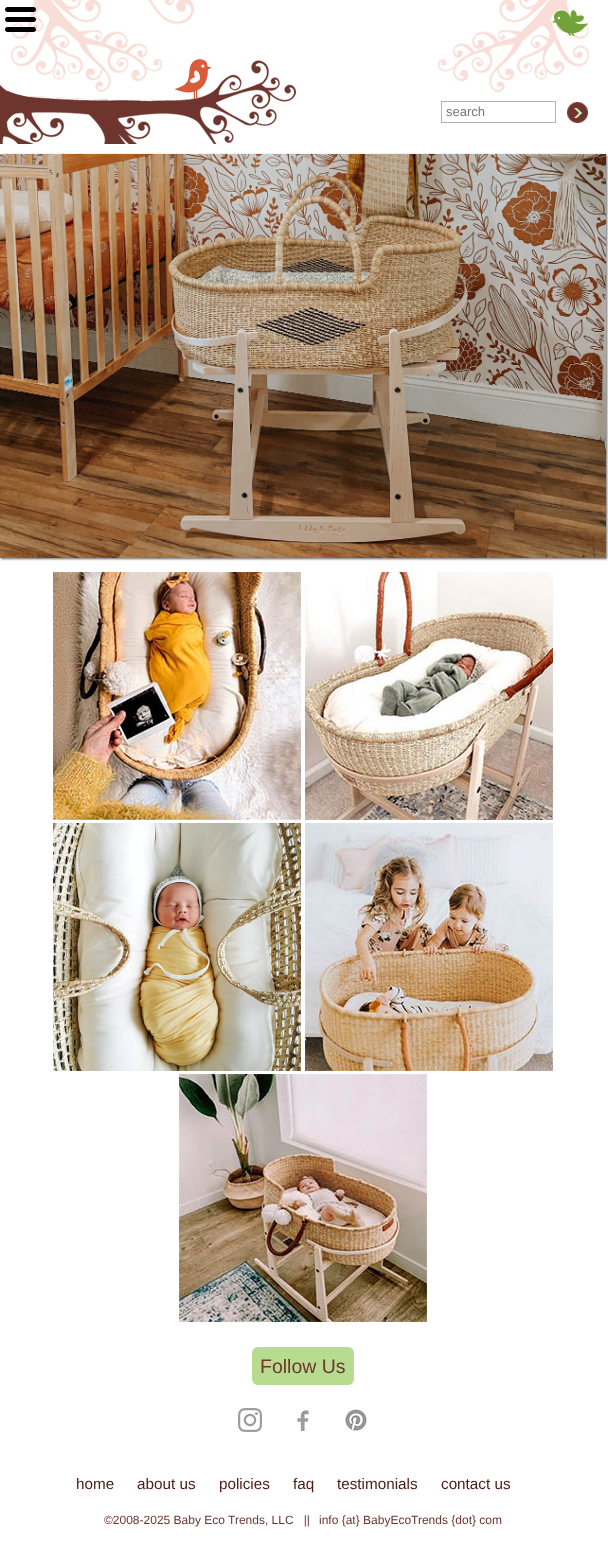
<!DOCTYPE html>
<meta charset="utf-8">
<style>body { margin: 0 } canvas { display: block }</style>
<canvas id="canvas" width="608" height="1555"></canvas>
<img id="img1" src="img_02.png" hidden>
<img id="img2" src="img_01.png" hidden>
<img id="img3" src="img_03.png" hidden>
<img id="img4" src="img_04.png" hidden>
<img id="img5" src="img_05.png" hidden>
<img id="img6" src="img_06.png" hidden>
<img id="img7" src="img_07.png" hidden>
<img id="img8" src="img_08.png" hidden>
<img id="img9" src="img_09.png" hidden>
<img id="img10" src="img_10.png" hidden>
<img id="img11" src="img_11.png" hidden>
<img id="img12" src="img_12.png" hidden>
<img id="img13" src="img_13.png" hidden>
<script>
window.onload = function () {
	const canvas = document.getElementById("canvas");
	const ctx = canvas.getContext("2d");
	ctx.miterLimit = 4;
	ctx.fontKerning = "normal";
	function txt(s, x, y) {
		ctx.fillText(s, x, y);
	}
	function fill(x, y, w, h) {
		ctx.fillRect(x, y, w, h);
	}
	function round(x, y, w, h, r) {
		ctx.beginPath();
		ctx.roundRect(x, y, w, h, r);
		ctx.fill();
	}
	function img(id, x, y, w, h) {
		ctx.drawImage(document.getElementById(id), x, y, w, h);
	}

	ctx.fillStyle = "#FFFFFF";
	fill(0, 0, 608, 1555);
	img("img1", 0, 0, 590, 144);
	img("img2", 5, 7, 31, 25);
	img("img3", 552, 10, 36, 27);
	ctx.strokeStyle = "#B8B3B2";
	ctx.strokeRect(441.5, 101.5, 114, 21);
	img("img4", 567, 102, 21, 21);
	ctx.fillStyle = "#666666";
	ctx.filter = "blur(1px)";
	ctx.beginPath();
	ctx.rect(1, 155, 606, 404);
	ctx.fill();
	ctx.filter = "none";
	img("img5", 0, 154, 606, 404);
	img("img6", 53, 572, 248, 248);
	img("img7", 305, 572, 248, 248);
	img("img8", 53, 823, 248, 248);
	img("img9", 305, 823, 248, 248);
	img("img10", 179, 1074, 248, 248);
	ctx.fillStyle = "#B7DC90";
	round(252, 1347, 102, 38, 6);
	img("img11", 238, 1408, 24, 24);
	img("img12", 297, 1410, 12, 21);
	img("img13", 345, 1409, 22, 22);
	ctx.font = "13px Liberation Sans";
	ctx.fillStyle = "#757575";
	txt("search", 446, 116);
	ctx.font = "19.5px Liberation Sans";
	ctx.fillStyle = "#6D352D";
	txt("Follow Us", 260, 1373);
	ctx.font = "15.25px Liberation Sans";
	ctx.fillStyle = "#4B1A14";
	txt("home", 76, 1489);
	txt("about us", 137, 1489);
	txt("policies", 219, 1489);
	txt("faq", 293, 1489);
	txt("testimonials", 337, 1489);
	txt("contact us", 441, 1489);
	ctx.font = "12px Liberation Sans";
	ctx.fillStyle = "#6D352D";
	txt("©2008-2025 Baby Eco Trends, LLC   ||", 104, 1524);
	txt("info {at} BabyEcoTrends {dot} com", 319, 1524);
};
</script>
